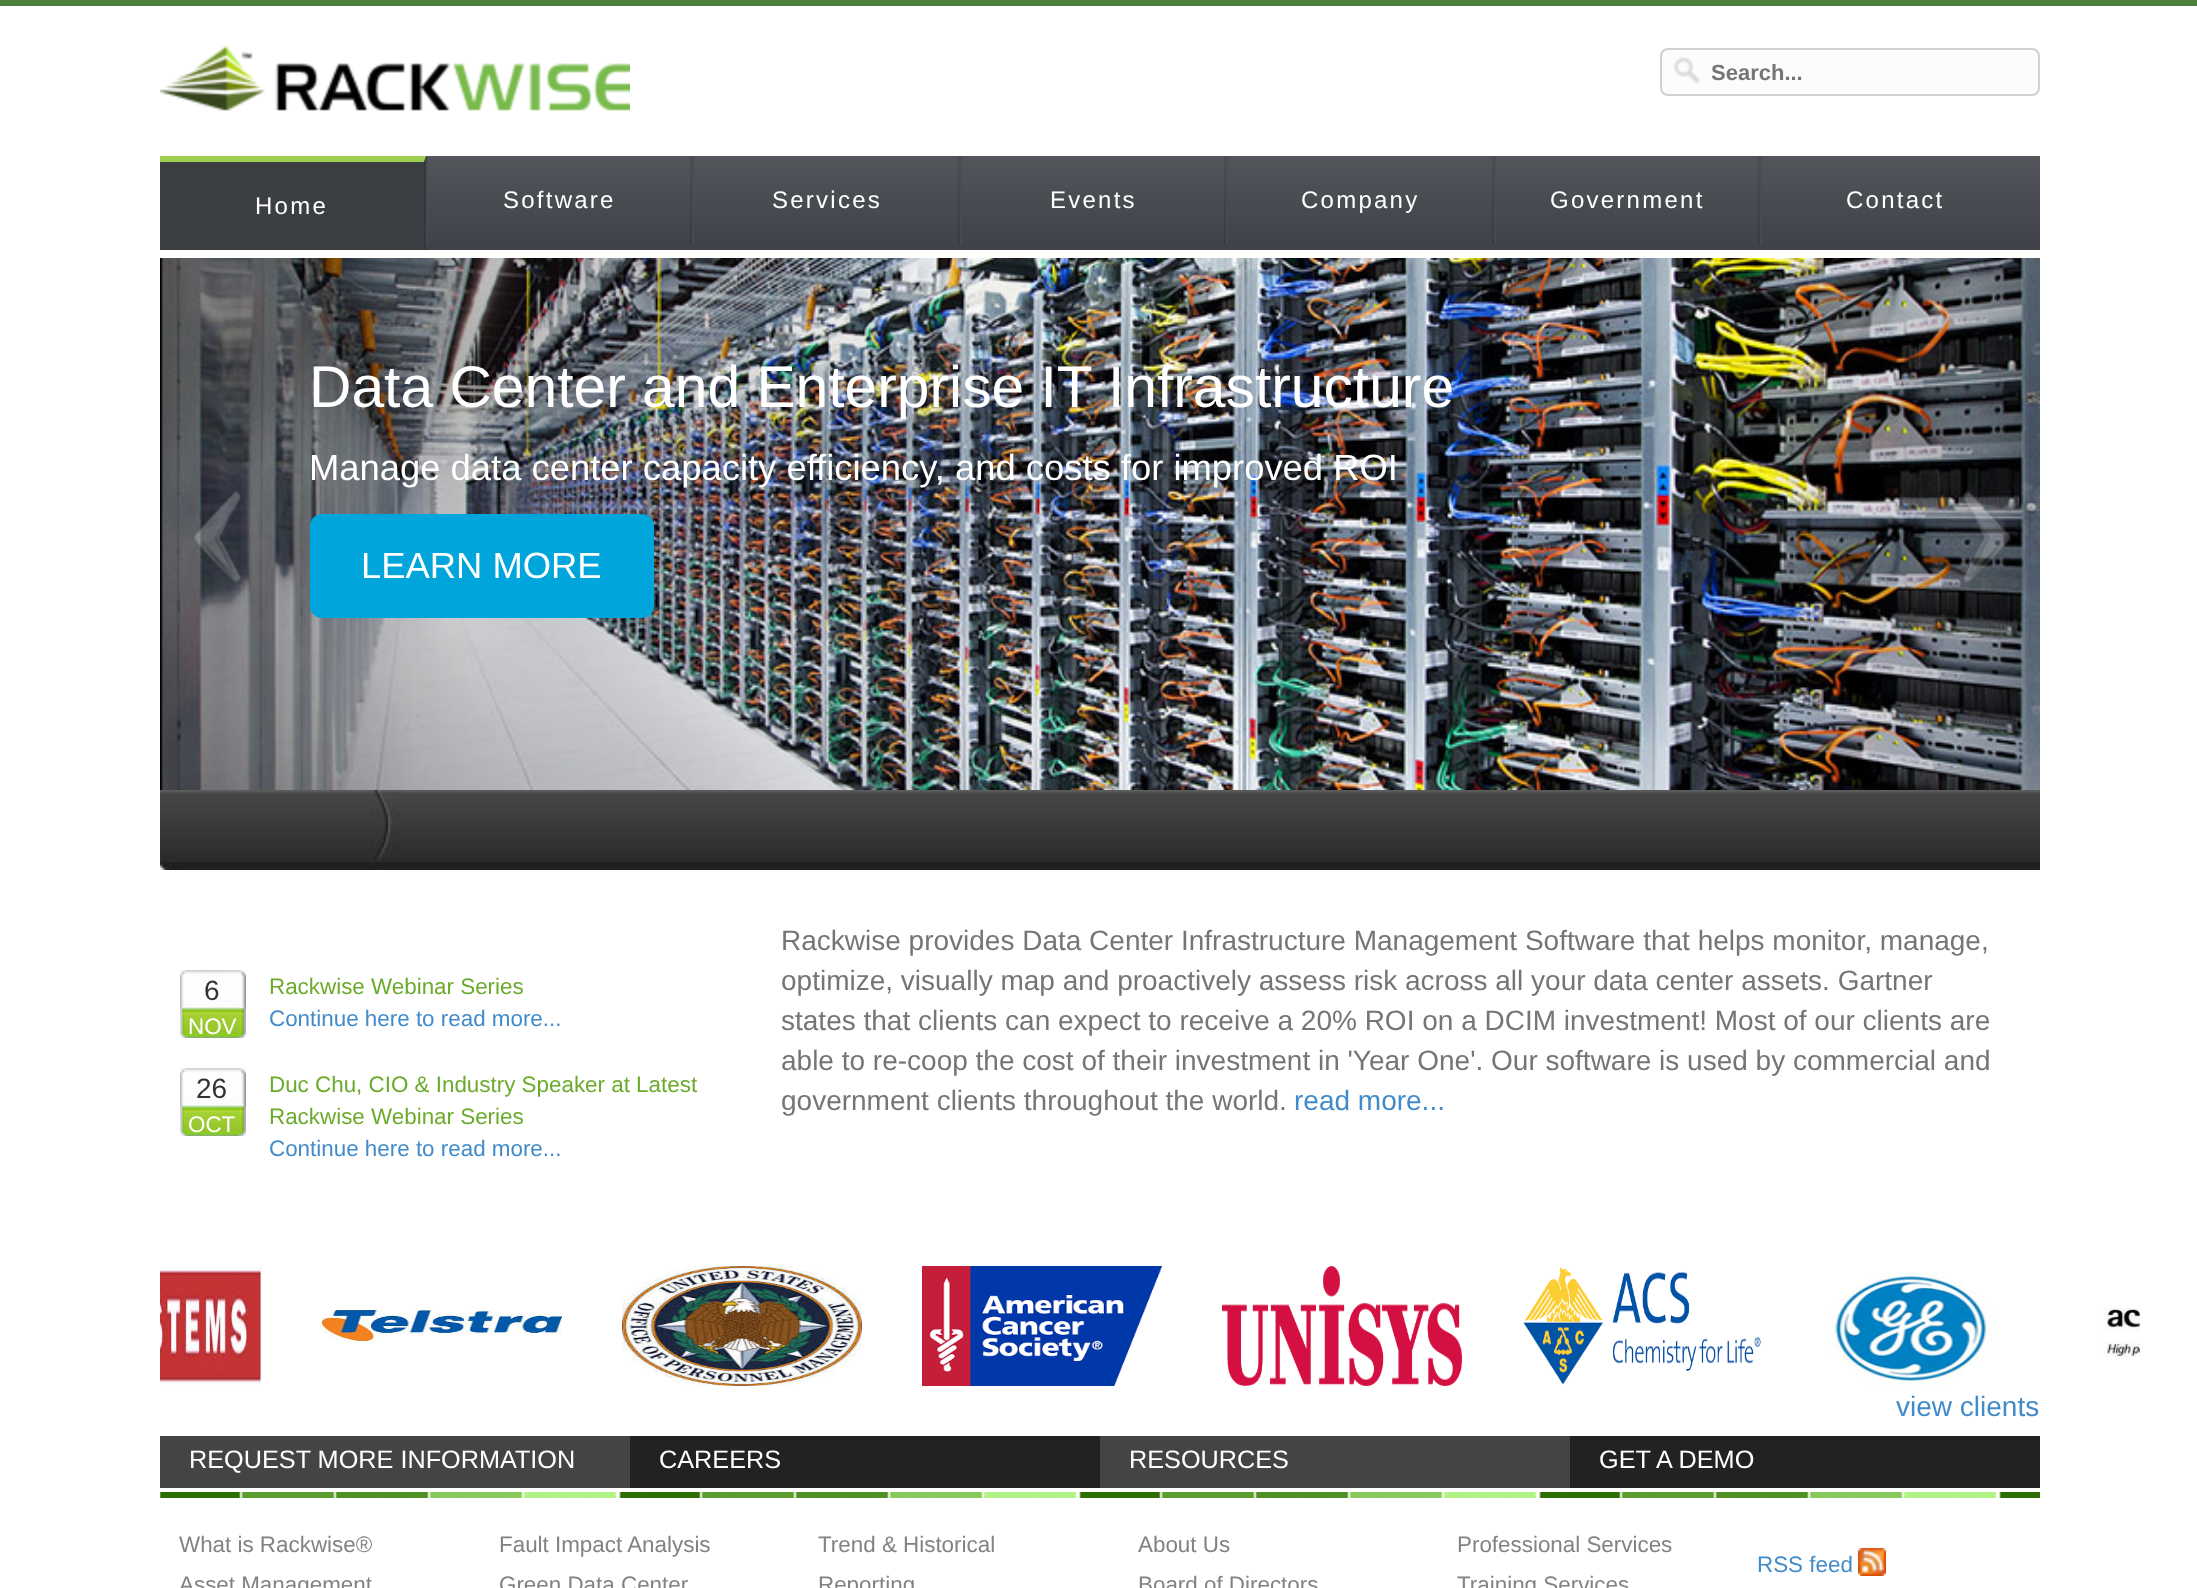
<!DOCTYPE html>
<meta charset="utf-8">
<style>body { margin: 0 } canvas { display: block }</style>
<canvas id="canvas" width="2197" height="1588"></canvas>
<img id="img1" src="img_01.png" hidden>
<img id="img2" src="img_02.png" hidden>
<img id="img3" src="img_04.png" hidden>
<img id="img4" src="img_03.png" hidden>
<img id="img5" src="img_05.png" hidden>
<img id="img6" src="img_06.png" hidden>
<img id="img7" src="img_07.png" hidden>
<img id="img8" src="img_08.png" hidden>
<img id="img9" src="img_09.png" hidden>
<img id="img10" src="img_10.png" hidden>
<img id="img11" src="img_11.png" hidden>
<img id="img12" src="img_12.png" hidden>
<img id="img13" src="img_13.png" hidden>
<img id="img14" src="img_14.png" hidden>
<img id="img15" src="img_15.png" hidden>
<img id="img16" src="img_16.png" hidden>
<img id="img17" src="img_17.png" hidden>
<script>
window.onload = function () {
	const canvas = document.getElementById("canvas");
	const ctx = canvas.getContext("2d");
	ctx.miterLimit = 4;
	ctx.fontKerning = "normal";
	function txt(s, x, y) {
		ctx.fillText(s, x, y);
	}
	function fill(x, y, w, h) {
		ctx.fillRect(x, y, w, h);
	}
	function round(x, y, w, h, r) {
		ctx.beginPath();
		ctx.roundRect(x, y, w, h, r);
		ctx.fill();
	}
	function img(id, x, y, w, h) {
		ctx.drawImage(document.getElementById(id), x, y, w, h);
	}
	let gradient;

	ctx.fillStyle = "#FFFFFF";
	fill(0, 0, 2197, 1588);
	ctx.fillStyle = "#4A7F3B";
	fill(0, 0, 2197, 6);
	img("img1", 160, 46, 470, 65);
	ctx.fillStyle = "#FCFCFC";
	round(1660, 48, 380, 48, 8);
	img("img2", 1673, 57, 28, 27);
	ctx.beginPath();
	ctx.roundRect(1661, 49, 378, 46, 7);
	ctx.strokeStyle = "#D1D1D1";
	ctx.lineWidth = 2;
	ctx.stroke();
	gradient = ctx.createLinearGradient(1100, 156, 1100, 250);
	gradient.addColorStop(0, "#52565B");
	gradient.addColorStop(1, "#3E4147");
	ctx.fillStyle = gradient;
	fill(426, 156, 1614, 94);
	ctx.fillStyle = "#3B3E43";
	fill(160, 156, 266, 94);
	ctx.fillStyle = "#A0CE4E";
	ctx.beginPath();
	ctx.moveTo(160, 156);
	ctx.lineTo(426, 156);
	ctx.lineTo(424, 162);
	ctx.lineTo(160, 162);
	ctx.closePath();
	ctx.fill();
	ctx.fillStyle = "rgba(0, 0, 0, 0.1)";
	ctx.beginPath();
	ctx.moveTo(426, 156);
	ctx.lineTo(426, 250);
	ctx.lineTo(424, 250);
	ctx.lineTo(424, 162);
	ctx.closePath();
	ctx.fill();
	gradient = ctx.createLinearGradient(559, 156, 559, 244);
	gradient.addColorStop(0, "#4B4F54");
	gradient.addColorStop(1, "#46494F");
	ctx.fillStyle = gradient;
	fill(426, 156, 2, 88);
	gradient = ctx.createLinearGradient(559, 156, 559, 244);
	gradient.addColorStop(0, "#4A4D52");
	gradient.addColorStop(1, "#383B40");
	ctx.fillStyle = gradient;
	fill(690, 156, 2, 88);
	gradient = ctx.createLinearGradient(826, 156, 826, 244);
	gradient.addColorStop(0, "#4B4F54");
	gradient.addColorStop(1, "#46494F");
	ctx.fillStyle = gradient;
	fill(692, 156, 2, 88);
	gradient = ctx.createLinearGradient(826, 156, 826, 244);
	gradient.addColorStop(0, "#4A4D52");
	gradient.addColorStop(1, "#383B40");
	ctx.fillStyle = gradient;
	fill(958, 156, 2, 88);
	gradient = ctx.createLinearGradient(1093, 156, 1093, 244);
	gradient.addColorStop(0, "#4B4F54");
	gradient.addColorStop(1, "#46494F");
	ctx.fillStyle = gradient;
	fill(960, 156, 2, 88);
	gradient = ctx.createLinearGradient(1093, 156, 1093, 244);
	gradient.addColorStop(0, "#4A4D52");
	gradient.addColorStop(1, "#383B40");
	ctx.fillStyle = gradient;
	fill(1224, 156, 2, 88);
	gradient = ctx.createLinearGradient(1360, 156, 1360, 244);
	gradient.addColorStop(0, "#4B4F54");
	gradient.addColorStop(1, "#46494F");
	ctx.fillStyle = gradient;
	fill(1226, 156, 2, 88);
	gradient = ctx.createLinearGradient(1360, 156, 1360, 244);
	gradient.addColorStop(0, "#4A4D52");
	gradient.addColorStop(1, "#383B40");
	ctx.fillStyle = gradient;
	fill(1492, 156, 2, 88);
	gradient = ctx.createLinearGradient(1627, 156, 1627, 244);
	gradient.addColorStop(0, "#4B4F54");
	gradient.addColorStop(1, "#46494F");
	ctx.fillStyle = gradient;
	fill(1494, 156, 2, 88);
	gradient = ctx.createLinearGradient(1627, 156, 1627, 244);
	gradient.addColorStop(0, "#4A4D52");
	gradient.addColorStop(1, "#383B40");
	ctx.fillStyle = gradient;
	fill(1758, 156, 2, 88);
	gradient = ctx.createLinearGradient(1895, 156, 1895, 244);
	gradient.addColorStop(0, "#4B4F54");
	gradient.addColorStop(1, "#46494F");
	ctx.fillStyle = gradient;
	fill(1760, 156, 2, 88);
	img("img3", 160, 258, 1880, 532);
	img("img4", 191, 490, 50, 93);
	ctx.fillStyle = "#00A5DC";
	ctx.beginPath();
	ctx.roundRect(311, 515, 342, 102, 11);
	ctx.fill();
	ctx.strokeStyle = "#00A5DC";
	ctx.stroke();
	img("img5", 1962, 490, 49, 94);
	img("img6", 160, 790, 1880, 80);
	img("img7", 180, 970, 66, 68);
	img("img7", 180, 1068, 66, 68);
	img("img8", 160, 1266, 102, 120);
	img("img9", 322, 1309, 240, 34);
	img("img10", 622, 1266, 240, 120);
	img("img11", 922, 1266, 240, 120);
	img("img12", 1222, 1266, 240, 120);
	img("img13", 1523, 1267, 238, 118);
	img("img14", 1831, 1272, 162, 113);
	img("img15", 2103, 1308, 37, 50);
	img("img16", 160, 1492, 1880, 6);
	ctx.fillStyle = "#444444";
	fill(160, 1436, 470, 52);
	ctx.fillStyle = "#222222";
	fill(630, 1436, 470, 52);
	ctx.fillStyle = "#444444";
	fill(1100, 1436, 470, 52);
	ctx.fillStyle = "#222222";
	fill(1570, 1436, 470, 52);
	img("img17", 1858, 1548, 28, 28);
	ctx.font = "bold 22px Liberation Sans";
	ctx.fillStyle = "#757575";
	txt("Search...", 1711, 80);
	ctx.letterSpacing = "2.25px";
	ctx.font = "24px Liberation Sans";
	ctx.fillStyle = "#FFFFFF";
	txt("Home", 255, 214);
	txt("Software", 503, 208);
	txt("Services", 772, 208);
	txt("Events", 1050, 208);
	txt("Company", 1301, 208);
	txt("Government", 1550, 208);
	txt("Contact", 1846, 208);
	ctx.letterSpacing = "0px";
	ctx.font = "58.75px Liberation Sans";
	txt("Data Center and Enterprise IT Infrastructure", 309, 407);
	ctx.font = "36.4px Liberation Sans";
	txt("Manage data center capacity efficiency, and costs for improved ROI", 309, 480);
	txt("LEARN MORE", 361, 578);
	ctx.font = "28px Liberation Sans";
	ctx.fillStyle = "#333333";
	txt("6", 204, 1000);
	ctx.font = "22.4px Liberation Sans";
	ctx.fillStyle = "#FFFFFF";
	txt("NOV", 188, 1034);
	ctx.fillStyle = "#6BAB2B";
	txt("Rackwise Webinar Series", 269, 994);
	ctx.fillStyle = "#428BCA";
	txt("Continue here to read more...", 269, 1026);
	ctx.font = "28px Liberation Sans";
	ctx.fillStyle = "#333333";
	txt("26", 196, 1098);
	ctx.font = "22.4px Liberation Sans";
	ctx.fillStyle = "#FFFFFF";
	txt("OCT", 188, 1132);
	ctx.fillStyle = "#6BAB2B";
	txt("Duc Chu, CIO & Industry Speaker at Latest", 269, 1092);
	txt("Rackwise Webinar Series", 269, 1124);
	ctx.fillStyle = "#428BCA";
	txt("Continue here to read more...", 269, 1156);
	ctx.font = "28px Liberation Sans";
	ctx.fillStyle = "#757575";
	txt("Rackwise provides Data Center Infrastructure Management Software that helps monitor, manage,", 781, 950);
	txt("optimize, visually map and proactively assess risk across all your data center assets. Gartner", 781, 990);
	txt("states that clients can expect to receive a 20% ROI on a DCIM investment! Most of our clients are", 781, 1030);
	txt("able to re-coop the cost of their investment in 'Year One'. Our software is used by commercial and", 781, 1070);
	txt("government clients throughout the world.", 781, 1110);
	ctx.fillStyle = "#428BCA";
	txt("read more...", 1294, 1110);
	txt("view clients", 1896, 1416);
	ctx.font = "25.25px Liberation Sans";
	ctx.fillStyle = "#FFFFFF";
	txt("REQUEST MORE INFORMATION", 189, 1468);
	txt("CAREERS", 659, 1468);
	txt("RESOURCES", 1129, 1468);
	txt("GET A DEMO", 1599, 1468);
	ctx.font = "22.4px Liberation Sans";
	ctx.fillStyle = "#828282";
	txt("What is Rackwise®", 179, 1552);
	txt("Asset Management", 179, 1592);
	txt("Fault Impact Analysis", 499, 1552);
	txt("Green Data Center", 499, 1592);
	txt("Trend & Historical", 818, 1552);
	txt("Reporting", 818, 1592);
	txt("About Us", 1138, 1552);
	txt("Board of Directors", 1138, 1592);
	txt("Professional Services", 1457, 1552);
	txt("Training Services", 1457, 1592);
	ctx.fillStyle = "#428BCA";
	txt("RSS feed", 1757, 1572);
};
</script>
